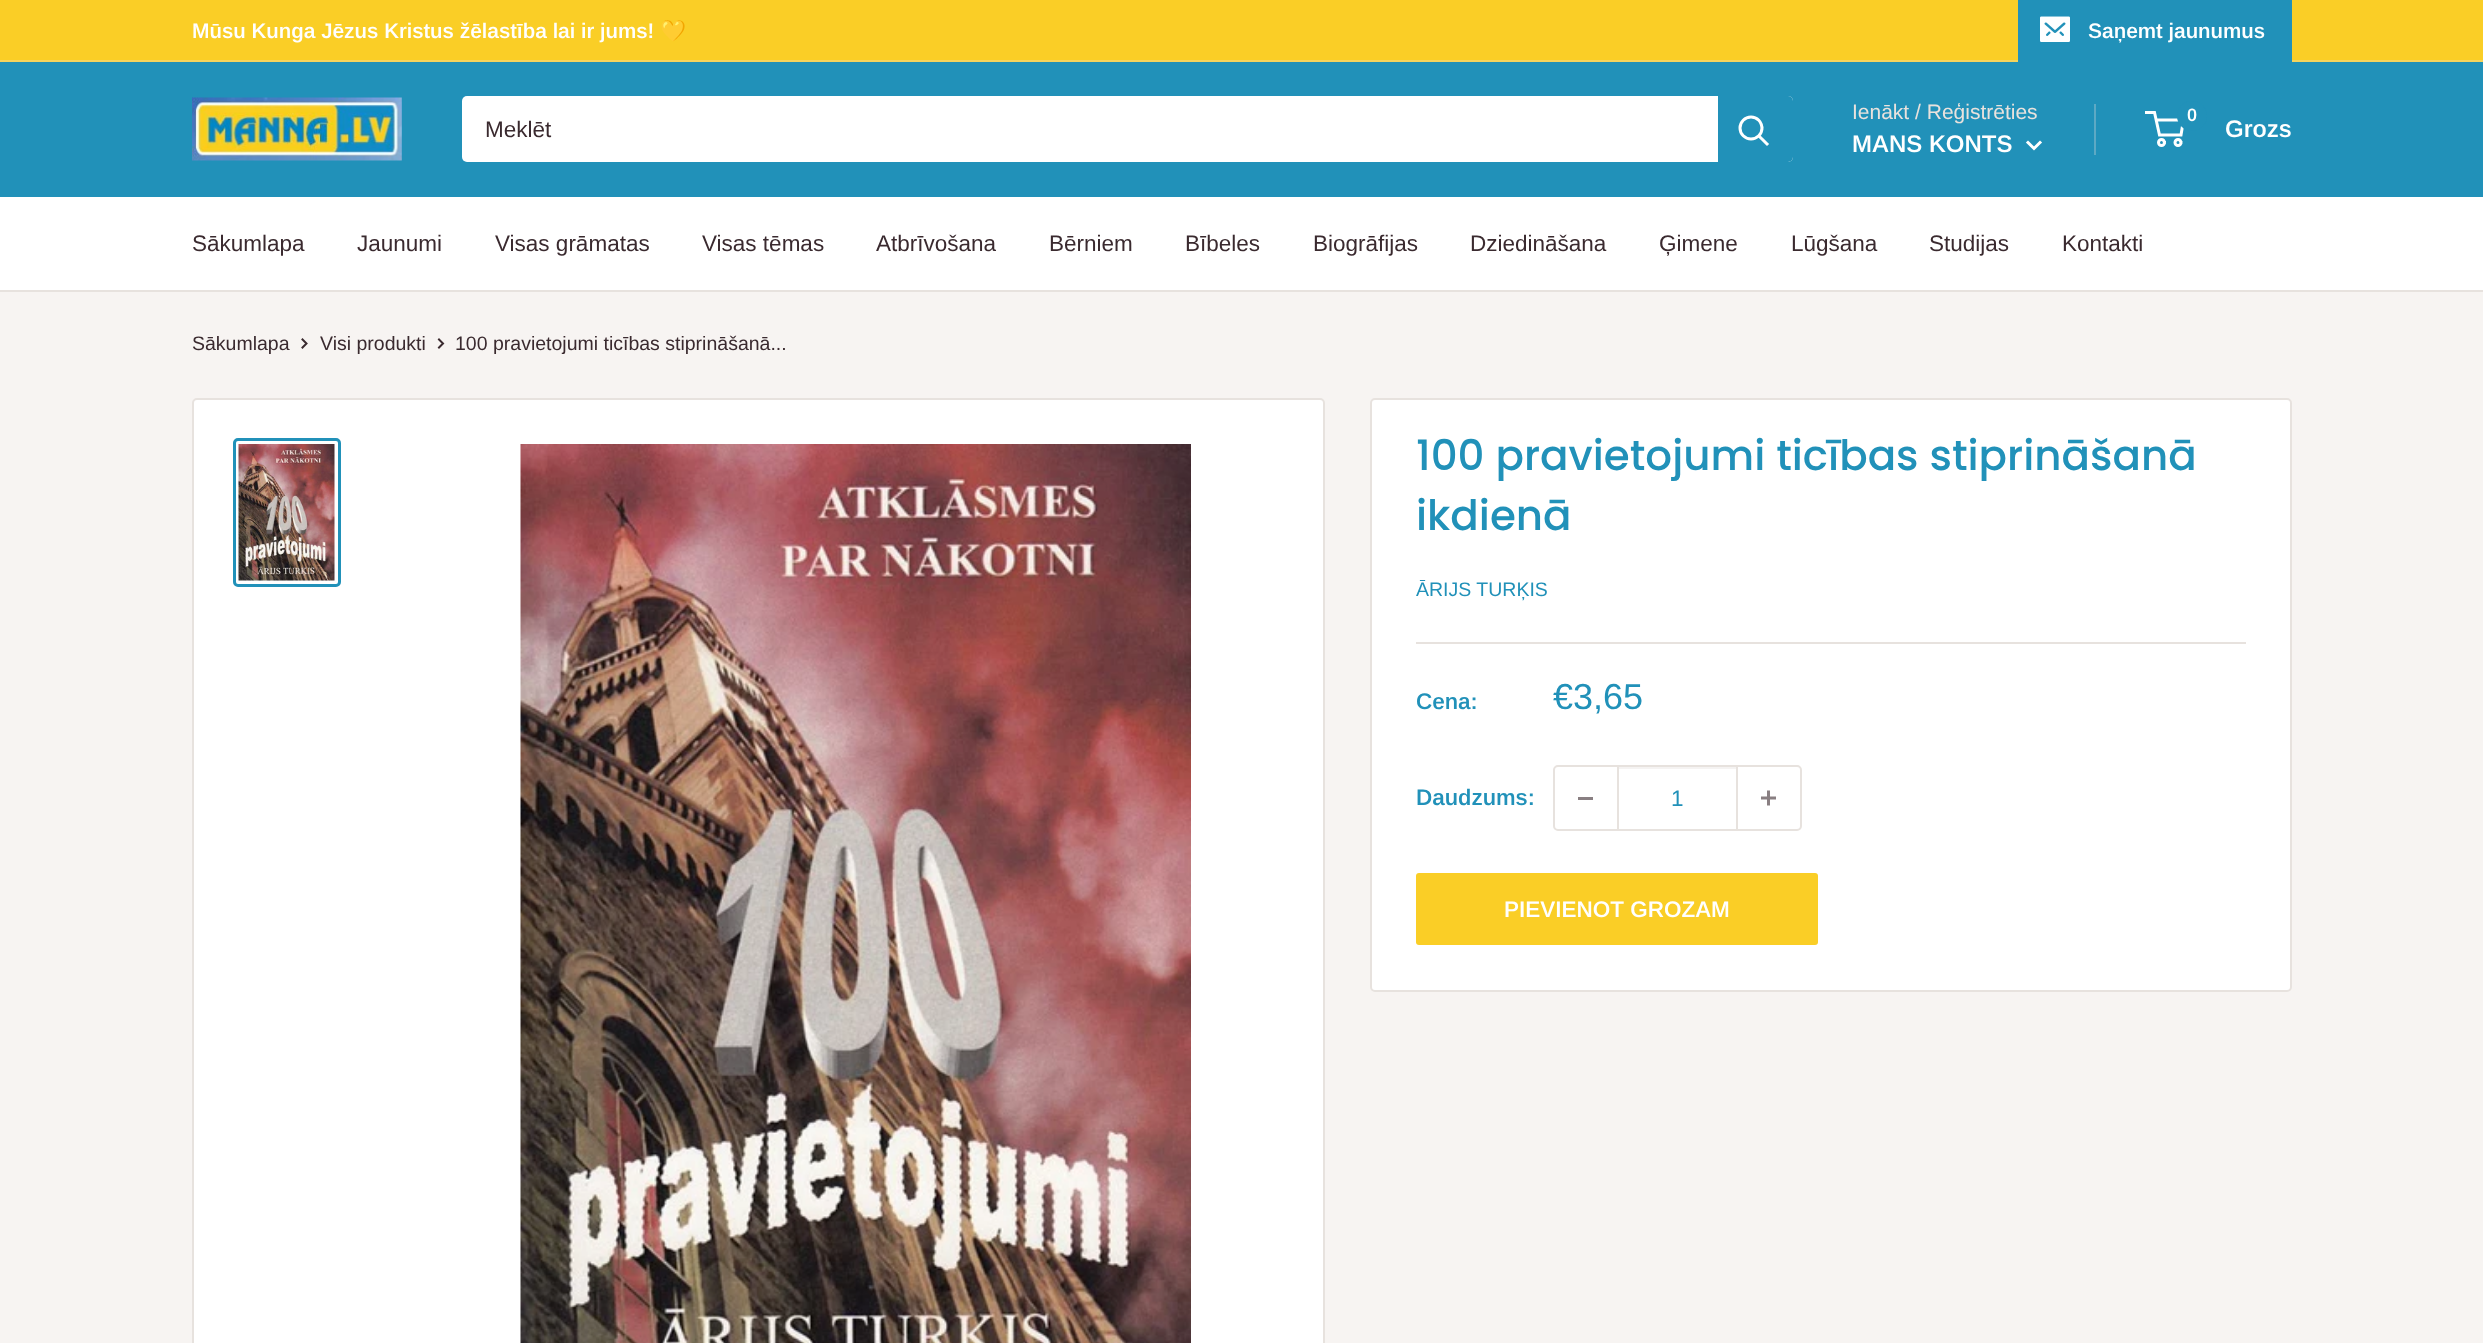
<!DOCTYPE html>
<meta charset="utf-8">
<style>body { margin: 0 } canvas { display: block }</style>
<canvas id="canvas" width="2483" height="1343"></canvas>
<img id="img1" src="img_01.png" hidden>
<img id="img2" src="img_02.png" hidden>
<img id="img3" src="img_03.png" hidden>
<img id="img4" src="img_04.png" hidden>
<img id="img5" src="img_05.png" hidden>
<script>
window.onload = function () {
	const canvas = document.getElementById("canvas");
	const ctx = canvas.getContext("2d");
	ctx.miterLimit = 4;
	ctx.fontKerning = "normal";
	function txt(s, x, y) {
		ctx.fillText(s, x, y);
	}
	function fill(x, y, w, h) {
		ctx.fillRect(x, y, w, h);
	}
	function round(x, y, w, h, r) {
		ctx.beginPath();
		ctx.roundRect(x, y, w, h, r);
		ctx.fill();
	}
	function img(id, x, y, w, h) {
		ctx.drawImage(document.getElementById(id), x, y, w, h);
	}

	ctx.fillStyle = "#F7F4F2";
	fill(0, 0, 2483, 1343);
	ctx.fillStyle = "#FACE26";
	fill(0, 0, 2483, 60);
	ctx.fillStyle = "#F5D45D";
	fill(0, 60, 2483, 2);
	ctx.fillStyle = "#2191B9";
	fill(2018, 0, 274, 62);
	img("img1", 2040, 16, 30, 26);
	fill(0, 62, 2483, 135);
	img("img2", 192, 97, 210, 64);
	ctx.fillStyle = "#FFFFFF";
	round(462, 96, 1331, 66, 5);
	ctx.fillStyle = "#2191B9";
	ctx.beginPath();
	ctx.roundRect(1718, 96, 75, 66, [0, 5, 5, 0]);
	ctx.fill();
	ctx.beginPath();
	ctx.moveTo(1767, 144);
	ctx.lineTo(1759.5, 136.5);
	ctx.strokeStyle = "#FFFFFF";
	ctx.lineWidth = 3;
	ctx.lineCap = "square";
	ctx.stroke();
	ctx.beginPath();
	ctx.arc(1751, 128, 11, 0, Math.PI * 2);
	ctx.stroke();
	ctx.fillStyle = "#5DA9C4";
	fill(2094, 104, 2, 51);
	ctx.beginPath();
	ctx.moveTo(2040, 142.5);
	ctx.lineTo(2034, 148.5);
	ctx.lineTo(2028, 142.5);
	ctx.stroke();
	ctx.beginPath();
	ctx.arc(2161.5, 142.5, 3, 0, Math.PI * 2);
	ctx.stroke();
	ctx.beginPath();
	ctx.arc(2178, 142.5, 3, 0, Math.PI * 2);
	ctx.stroke();
	ctx.beginPath();
	ctx.moveTo(2156, 120);
	ctx.lineTo(2183.5, 120);
	ctx.lineTo(2181, 135);
	ctx.lineTo(2159.5, 135);
	ctx.lineTo(2154.5, 112.5);
	ctx.lineTo(2145, 112.5);
	ctx.lineCap = "butt";
	ctx.stroke();
	ctx.fillStyle = "#2191B9";
	ctx.beginPath();
	ctx.arc(2192, 116, 15, 0, Math.PI * 2);
	ctx.fill();
	ctx.fillStyle = "#FFFFFF";
	fill(0, 197, 2483, 93);
	ctx.fillStyle = "#E7E2DE";
	fill(0, 290, 2483, 2);
	ctx.beginPath();
	ctx.moveTo(302.5, 339.5);
	ctx.lineTo(306.5, 343.5);
	ctx.lineTo(302.5, 347.5);
	ctx.strokeStyle = "#3A2A2F";
	ctx.lineWidth = 2;
	ctx.lineCap = "square";
	ctx.stroke();
	ctx.beginPath();
	ctx.moveTo(439, 339.5);
	ctx.lineTo(443, 343.5);
	ctx.lineTo(439, 347.5);
	ctx.stroke();
	ctx.fillStyle = "#FFFFFF";
	ctx.beginPath();
	ctx.roundRect(193, 399, 1131, 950, 4);
	ctx.fill();
	ctx.strokeStyle = "#E7E2DE";
	ctx.stroke();
	ctx.beginPath();
	ctx.roundRect(234.5, 439.5, 105, 146, 3.5);
	ctx.strokeStyle = "#2191B9";
	ctx.lineWidth = 3;
	ctx.stroke();
	img("img3", 238, 444, 97, 137);
	img("img4", 520, 444, 671, 899);
	ctx.beginPath();
	ctx.roundRect(1371, 399, 920, 592, 4);
	ctx.fill();
	ctx.strokeStyle = "#E7E2DE";
	ctx.lineWidth = 2;
	ctx.stroke();
	ctx.fillStyle = "#E7E2DE";
	fill(1416, 642, 830, 2);
	ctx.beginPath();
	ctx.roundRect(1554, 766, 247, 64, 4);
	ctx.stroke();
	ctx.fillStyle = "#897F82";
	fill(1578, 797, 15, 3);
	ctx.fillStyle = "#F5F3F2";
	fill(1619, 767, 117, 2);
	ctx.fillStyle = "#E7E2DE";
	fill(1736, 767, 2, 63);
	fill(1617, 767, 2, 63);
	img("img5", 1761, 790, 15, 16);
	ctx.fillStyle = "#FACE26";
	round(1416, 873, 402, 72, 3);
	ctx.font = "600 21px Arimo";
	ctx.fillStyle = "#FFFFFF";
	txt("Mūsu Kunga Jēzus Kristus žēlastība lai ir jums!", 192, 38);
	ctx.font = "bold 21px Noto Color Emoji";
	txt("💛", 660, 38);
	ctx.font = "600 21px Arimo";
	txt("Saņemt jaunumus", 2088, 38);
	ctx.font = "22.5px Arimo";
	ctx.fillStyle = "#3A2A2F";
	txt("Meklēt", 485, 137);
	ctx.font = "21px Arimo";
	ctx.fillStyle = "#E9E2DD";
	txt("Ienākt / Reģistrēties", 1852, 119);
	ctx.font = "600 24px Arimo";
	ctx.fillStyle = "#FFFFFF";
	txt("MANS KONTS", 1852, 152);
	ctx.font = "600 18px Arimo";
	txt("0", 2187, 121);
	ctx.font = "600 24px Arimo";
	txt("Grozs", 2225, 137);
	ctx.font = "22.5px Arimo";
	ctx.fillStyle = "#3A2A2F";
	txt("Sākumlapa", 192, 251);
	txt("Jaunumi", 357, 251);
	txt("Visas grāmatas", 495, 251);
	txt("Visas tēmas", 702, 251);
	txt("Atbrīvošana", 876, 251);
	txt("Bērniem", 1049, 251);
	txt("Bībeles", 1185, 251);
	txt("Biogrāfijas", 1313, 251);
	txt("Dziedināšana", 1470, 251);
	txt("Ģimene", 1659, 251);
	txt("Lūgšana", 1791, 251);
	txt("Studijas", 1929, 251);
	txt("Kontakti", 2062, 251);
	ctx.font = "19.5px Arimo";
	txt("Sākumlapa", 192, 350);
	txt("Visi produkti", 320, 350);
	txt("100 pravietojumi ticības stiprināšanā...", 455, 350);
	ctx.font = "500 42px Poppins";
	ctx.fillStyle = "#2191B9";
	txt("100 pravietojumi ticības stiprināšanā", 1416, 470);
	txt("ikdienā", 1416, 530);
	ctx.font = "19.5px Arimo";
	txt("ĀRIJS TURĶIS", 1416, 596);
	ctx.font = "600 22.5px Arimo";
	txt("Cena:", 1416, 709);
	ctx.font = "36px Arimo";
	txt("€3,65", 1553, 709);
	ctx.font = "600 22.5px Arimo";
	txt("Daudzums:", 1416, 805);
	ctx.font = "22.5px Arimo";
	txt("1", 1671, 806);
	ctx.font = "600 22.5px Arimo";
	ctx.fillStyle = "#FFFFFF";
	txt("PIEVIENOT GROZAM", 1504, 917);
};
</script>
